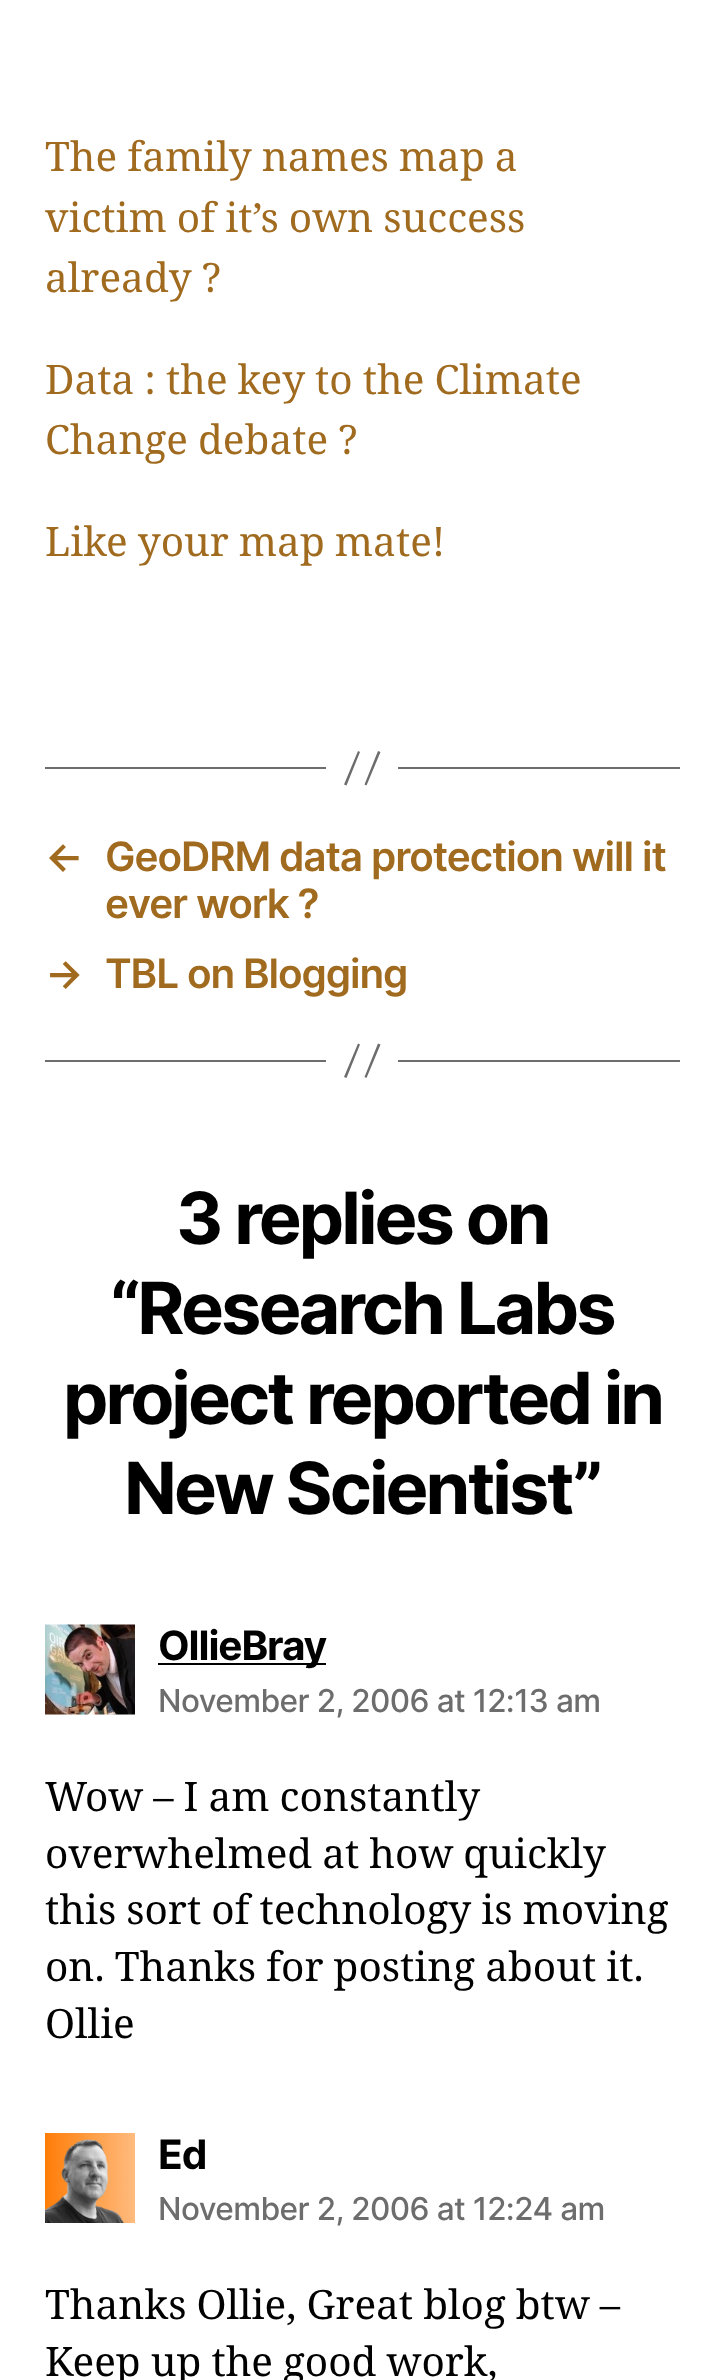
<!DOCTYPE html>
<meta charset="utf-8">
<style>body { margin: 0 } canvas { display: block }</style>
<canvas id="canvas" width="723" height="2380"></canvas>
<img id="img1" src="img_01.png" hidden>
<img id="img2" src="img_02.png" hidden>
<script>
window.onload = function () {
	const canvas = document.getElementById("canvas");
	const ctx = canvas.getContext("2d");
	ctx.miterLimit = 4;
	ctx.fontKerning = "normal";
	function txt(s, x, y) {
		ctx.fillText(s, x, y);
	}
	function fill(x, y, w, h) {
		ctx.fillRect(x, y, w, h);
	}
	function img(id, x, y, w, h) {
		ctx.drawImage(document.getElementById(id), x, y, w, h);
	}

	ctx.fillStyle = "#FFFFFF";
	fill(0, 0, 723, 2380);
	ctx.fillStyle = "#6D6D6D";
	fill(398, 767, 282, 2);
	fill(45, 767, 281, 2);
	ctx.beginPath();
	ctx.moveTo(358, 751);
	ctx.lineTo(360, 752);
	ctx.lineTo(346.5, 785.5);
	ctx.lineTo(344, 784.5);
	ctx.closePath();
	ctx.moveTo(378, 751);
	ctx.lineTo(380.5, 752);
	ctx.lineTo(366.5, 785.5);
	ctx.lineTo(364.5, 784.5);
	ctx.closePath();
	ctx.fill();
	fill(398, 1060, 282, 2);
	fill(45, 1060, 281, 2);
	ctx.beginPath();
	ctx.moveTo(358, 1043.5);
	ctx.lineTo(360, 1044.5);
	ctx.lineTo(346.5, 1078);
	ctx.lineTo(344, 1077);
	ctx.closePath();
	ctx.moveTo(378, 1043.5);
	ctx.lineTo(380.5, 1044.5);
	ctx.lineTo(366.5, 1078);
	ctx.lineTo(364.5, 1077);
	ctx.closePath();
	ctx.fill();
	img("img1", 45, 1624, 90, 91);
	ctx.fillStyle = "#000000";
	fill(158, 1663, 168, 2);
	img("img2", 45, 2133, 90, 90);
	ctx.wordSpacing = "-0.5px";
	ctx.font = "40.5px Noto Serif";
	ctx.fillStyle = "#A16B1F";
	txt("The family names map a", 45, 171);
	txt("victim of it’s own success", 45, 232);
	txt("already ?", 45, 292);
	txt("Data : the key to the Climate", 45, 394);
	txt("Change debate ?", 45, 454);
	txt("Like your map mate!", 45, 556);
	ctx.letterSpacing = "-1.1px";
	ctx.wordSpacing = "0px";
	ctx.font = "600 40.5px Inter";
	txt("←", 45, 871);
	txt("GeoDRM data protection will it", 105, 871);
	txt("ever work ?", 105, 918);
	txt("→", 45, 988);
	txt("TBL on Blogging", 105, 988);
	ctx.letterSpacing = "-3px";
	ctx.font = "bold 72px Inter";
	ctx.fillStyle = "#000000";
	txt("3 replies on", 176, 1244);
	txt("“Research Labs", 110, 1334);
	txt("project reported in", 63, 1424);
	txt("New Scientist”", 124, 1514);
	ctx.letterSpacing = "-1.1px";
	ctx.font = "bold 40.5px Inter";
	txt("OllieBray", 158, 1660);
	ctx.letterSpacing = "-0.6px";
	ctx.font = "500 31.5px Inter";
	ctx.fillStyle = "#6D6D6D";
	txt("November 2, 2006 at 12:13 am", 158, 1712);
	ctx.letterSpacing = "0px";
	ctx.wordSpacing = "-0.5px";
	ctx.font = "40.5px Noto Serif";
	ctx.fillStyle = "#000000";
	txt("Wow – I am constantly", 45, 1811);
	txt("overwhelmed at how quickly", 45, 1868);
	txt("this sort of technology is moving", 45, 1924);
	txt("on. Thanks for posting about it.", 45, 1981);
	ctx.wordSpacing = "0px";
	txt("Ollie", 45, 2038);
	ctx.letterSpacing = "-1.1px";
	ctx.font = "bold 40.5px Inter";
	txt("Ed", 158, 2169);
	ctx.letterSpacing = "-0.6px";
	ctx.font = "500 31.5px Inter";
	ctx.fillStyle = "#6D6D6D";
	txt("November 2, 2006 at 12:24 am", 158, 2220);
	ctx.letterSpacing = "0px";
	ctx.wordSpacing = "-0.5px";
	ctx.font = "40.5px Noto Serif";
	ctx.fillStyle = "#000000";
	txt("Thanks Ollie, Great blog btw –", 45, 2319);
	txt("Keep up the good work,", 45, 2376);
};
</script>
